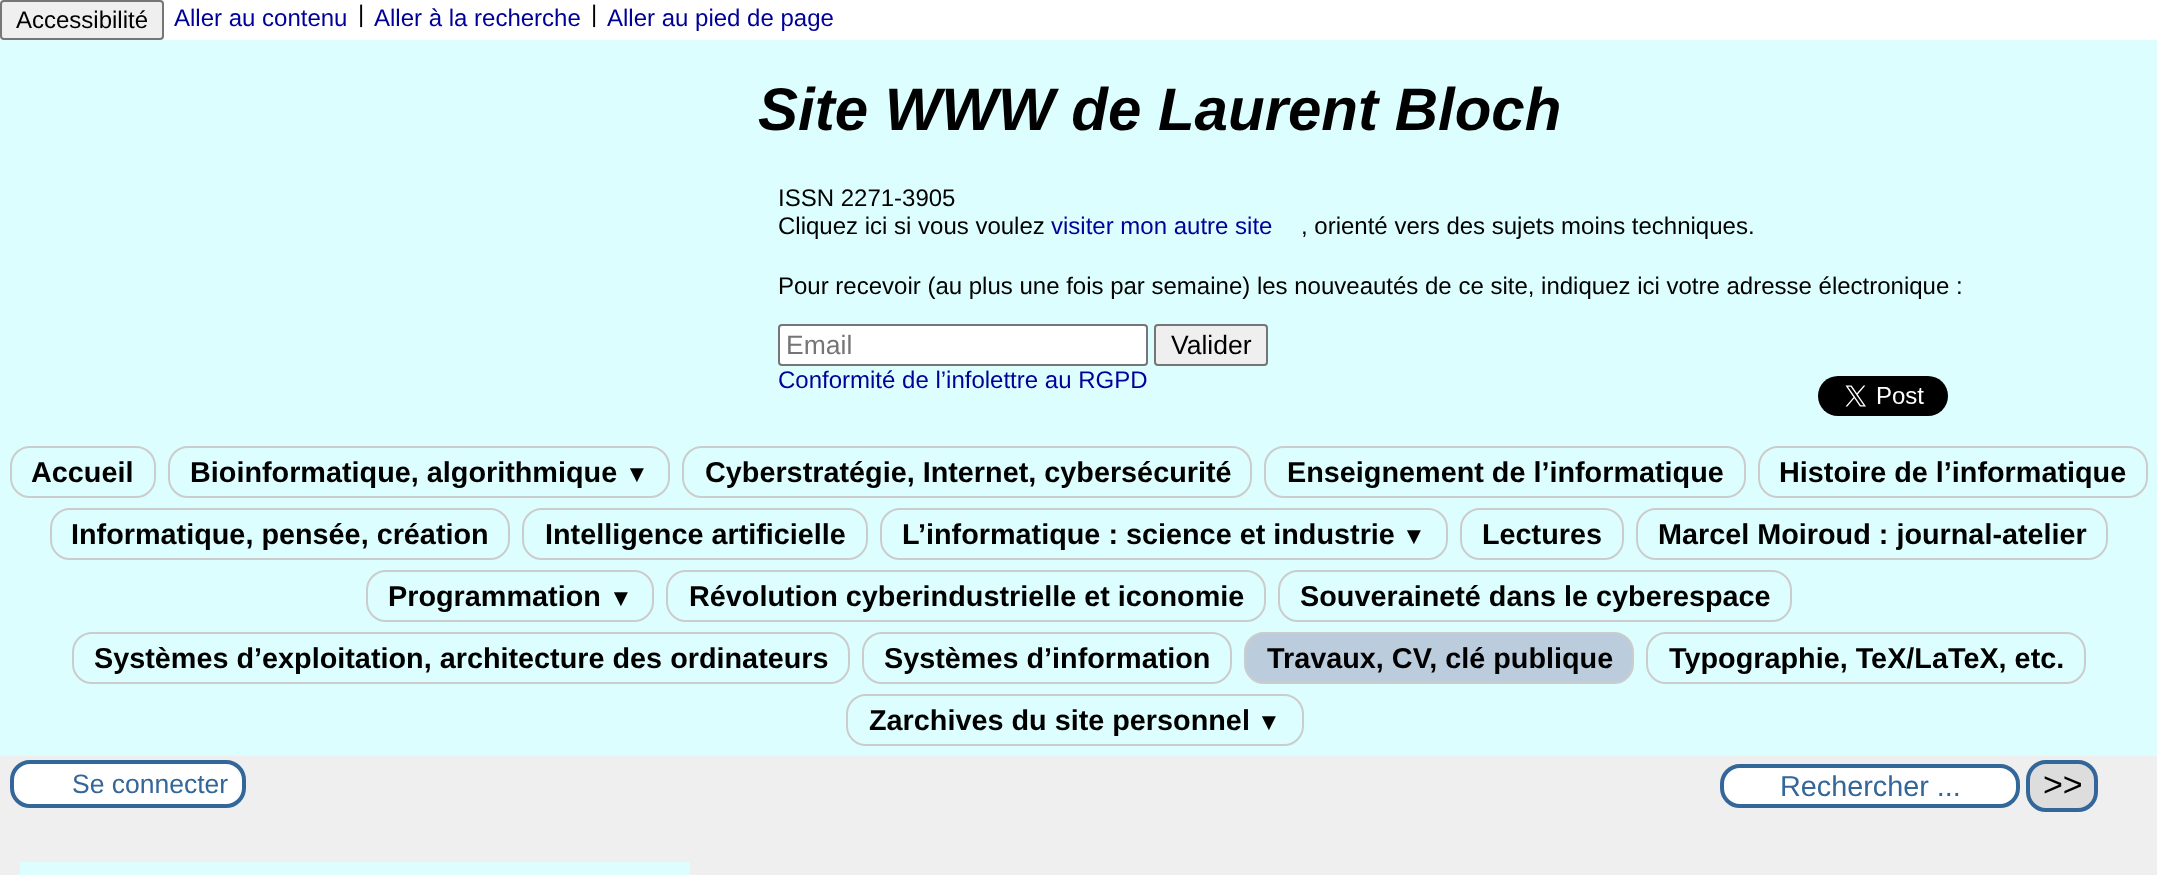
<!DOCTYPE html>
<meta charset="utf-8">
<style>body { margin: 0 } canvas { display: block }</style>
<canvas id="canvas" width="2157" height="875"></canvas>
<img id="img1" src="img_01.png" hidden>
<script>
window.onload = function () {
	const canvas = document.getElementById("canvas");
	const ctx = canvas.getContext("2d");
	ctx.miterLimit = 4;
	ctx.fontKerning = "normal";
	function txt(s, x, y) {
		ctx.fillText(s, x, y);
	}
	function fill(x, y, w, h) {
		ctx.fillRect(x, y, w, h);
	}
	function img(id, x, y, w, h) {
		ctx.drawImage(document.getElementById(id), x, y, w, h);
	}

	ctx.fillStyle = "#EFEFEF";
	fill(0, 0, 2157, 875);
	ctx.fillStyle = "#DDFEFE";
	fill(0, 40, 2157, 716);
	ctx.fillStyle = "#FFFFFF";
	fill(0, 0, 2157, 40);
	ctx.fillStyle = "#EFEFEF";
	ctx.beginPath();
	ctx.roundRect(1, 1, 162, 38, 3);
	ctx.fill();
	ctx.strokeStyle = "#767676";
	ctx.lineWidth = 2;
	ctx.stroke();
	ctx.fillStyle = "#FFFFFF";
	ctx.beginPath();
	ctx.roundRect(779, 325, 368, 40, 3);
	ctx.fill();
	ctx.stroke();
	ctx.fillStyle = "#EFEFEF";
	ctx.beginPath();
	ctx.roundRect(1155, 325, 112, 40, 3);
	ctx.fill();
	ctx.stroke();
	img("img1", 1818, 376, 130, 40);
	ctx.beginPath();
	ctx.roundRect(11, 447, 144, 50, 19);
	ctx.strokeStyle = "#CCCCCC";
	ctx.stroke();
	ctx.beginPath();
	ctx.roundRect(169, 447, 500, 50, 19);
	ctx.stroke();
	ctx.beginPath();
	ctx.roundRect(683, 447, 568, 50, 19);
	ctx.stroke();
	ctx.beginPath();
	ctx.roundRect(1265, 447, 480, 50, 19);
	ctx.stroke();
	ctx.beginPath();
	ctx.roundRect(1759, 447, 388, 50, 19);
	ctx.stroke();
	ctx.beginPath();
	ctx.roundRect(51, 509, 458, 50, 19);
	ctx.stroke();
	ctx.beginPath();
	ctx.roundRect(523, 509, 344, 50, 19);
	ctx.stroke();
	ctx.beginPath();
	ctx.roundRect(881, 509, 566, 50, 19);
	ctx.stroke();
	ctx.beginPath();
	ctx.roundRect(1461, 509, 162, 50, 19);
	ctx.stroke();
	ctx.beginPath();
	ctx.roundRect(1637, 509, 470, 50, 19);
	ctx.stroke();
	ctx.beginPath();
	ctx.roundRect(367, 571, 286, 50, 19);
	ctx.stroke();
	ctx.beginPath();
	ctx.roundRect(667, 571, 598, 50, 19);
	ctx.stroke();
	ctx.beginPath();
	ctx.roundRect(1279, 571, 512, 50, 19);
	ctx.stroke();
	ctx.beginPath();
	ctx.roundRect(73, 633, 776, 50, 19);
	ctx.stroke();
	ctx.beginPath();
	ctx.roundRect(863, 633, 368, 50, 19);
	ctx.stroke();
	ctx.fillStyle = "#BBCCDD";
	ctx.beginPath();
	ctx.roundRect(1245, 633, 388, 50, 19);
	ctx.fill();
	ctx.stroke();
	ctx.beginPath();
	ctx.roundRect(1647, 633, 438, 50, 19);
	ctx.stroke();
	ctx.beginPath();
	ctx.roundRect(847, 695, 456, 50, 19);
	ctx.stroke();
	ctx.fillStyle = "#FFFFFF";
	ctx.beginPath();
	ctx.roundRect(12, 762, 232, 44, 18);
	ctx.fill();
	ctx.strokeStyle = "#336699";
	ctx.lineWidth = 4;
	ctx.stroke();
	ctx.beginPath();
	ctx.roundRect(1722, 766, 296, 40, 18);
	ctx.fill();
	ctx.stroke();
	ctx.fillStyle = "#DDDDDD";
	ctx.beginPath();
	ctx.roundRect(2028, 762, 68, 48, 18);
	ctx.fill();
	ctx.stroke();
	ctx.fillStyle = "#DDFEFE";
	fill(20, 862, 670, 13);
	ctx.font = "24px Liberation Sans";
	ctx.fillStyle = "#000000";
	txt("Accessibilité", 16, 28);
	ctx.fillStyle = "#000099";
	txt("Aller au contenu", 174, 26);
	ctx.fillStyle = "#000000";
	txt("|", 358, 22);
	ctx.fillStyle = "#000099";
	txt("Aller à la recherche", 374, 26);
	ctx.fillStyle = "#000000";
	txt("|", 591, 22);
	ctx.fillStyle = "#000099";
	txt("Aller au pied de page", 607, 26);
	ctx.font = "italic bold 60px Liberation Sans";
	ctx.fillStyle = "#000000";
	txt("Site WWW de Laurent Bloch", 758, 130);
	ctx.font = "24px Liberation Sans";
	txt("ISSN 2271-3905", 778, 206);
	txt("Cliquez ici si vous voulez", 778, 234);
	ctx.fillStyle = "#000099";
	txt("visiter mon autre site", 1051, 234);
	ctx.fillStyle = "#000000";
	txt(", orienté vers des sujets moins techniques.", 1301, 234);
	txt("Pour recevoir (au plus une fois par semaine) les nouveautés de ce site, indiquez ici votre adresse électronique :", 778, 294);
	ctx.font = "26.5px Liberation Sans";
	ctx.fillStyle = "#757575";
	txt("Email", 786, 354);
	ctx.fillStyle = "#000000";
	txt("Valider", 1171, 354);
	ctx.font = "24px Liberation Sans";
	ctx.fillStyle = "#000099";
	txt("Conformité de l’infolettre au RGPD", 778, 388);
	ctx.font = "bold 28.8px Liberation Sans";
	ctx.fillStyle = "#000000";
	txt("Accueil", 31, 482);
	txt("Bioinformatique, algorithmique", 190, 482);
	ctx.font = "bold 24px Liberation Sans";
	txt("▼", 625, 482);
	ctx.font = "bold 28.8px Liberation Sans";
	txt("Cyberstratégie, Internet, cybersécurité", 705, 482);
	txt("Enseignement de l’informatique", 1287, 482);
	txt("Histoire de l’informatique", 1779, 482);
	txt("Informatique, pensée, création", 71, 544);
	txt("Intelligence artificielle", 545, 544);
	txt("L’informatique : science et industrie", 902, 544);
	ctx.font = "bold 24px Liberation Sans";
	txt("▼", 1402, 544);
	ctx.font = "bold 28.8px Liberation Sans";
	txt("Lectures", 1482, 544);
	txt("Marcel Moiroud : journal-atelier", 1658, 544);
	txt("Programmation", 388, 606);
	ctx.font = "bold 24px Liberation Sans";
	txt("▼", 609, 606);
	ctx.font = "bold 28.8px Liberation Sans";
	txt("Révolution cyberindustrielle et iconomie", 689, 606);
	txt("Souveraineté dans le cyberespace", 1300, 606);
	txt("Systèmes d’exploitation, architecture des ordinateurs", 94, 668);
	txt("Systèmes d’information", 884, 668);
	txt("Travaux, CV, clé publique", 1267, 668);
	txt("Typographie, TeX/LaTeX, etc.", 1669, 668);
	txt("Zarchives du site personnel", 869, 730);
	ctx.font = "bold 24px Liberation Sans";
	txt("▼", 1257, 730);
	ctx.font = "26.5px Liberation Sans";
	ctx.fillStyle = "#336699";
	txt("Se connecter", 72, 793);
	ctx.font = "28.8px Liberation Sans";
	txt("Rechercher ...", 1780, 796);
	ctx.font = "34px Liberation Sans";
	ctx.fillStyle = "#000000";
	txt(">>", 2043, 796);
};
</script>
